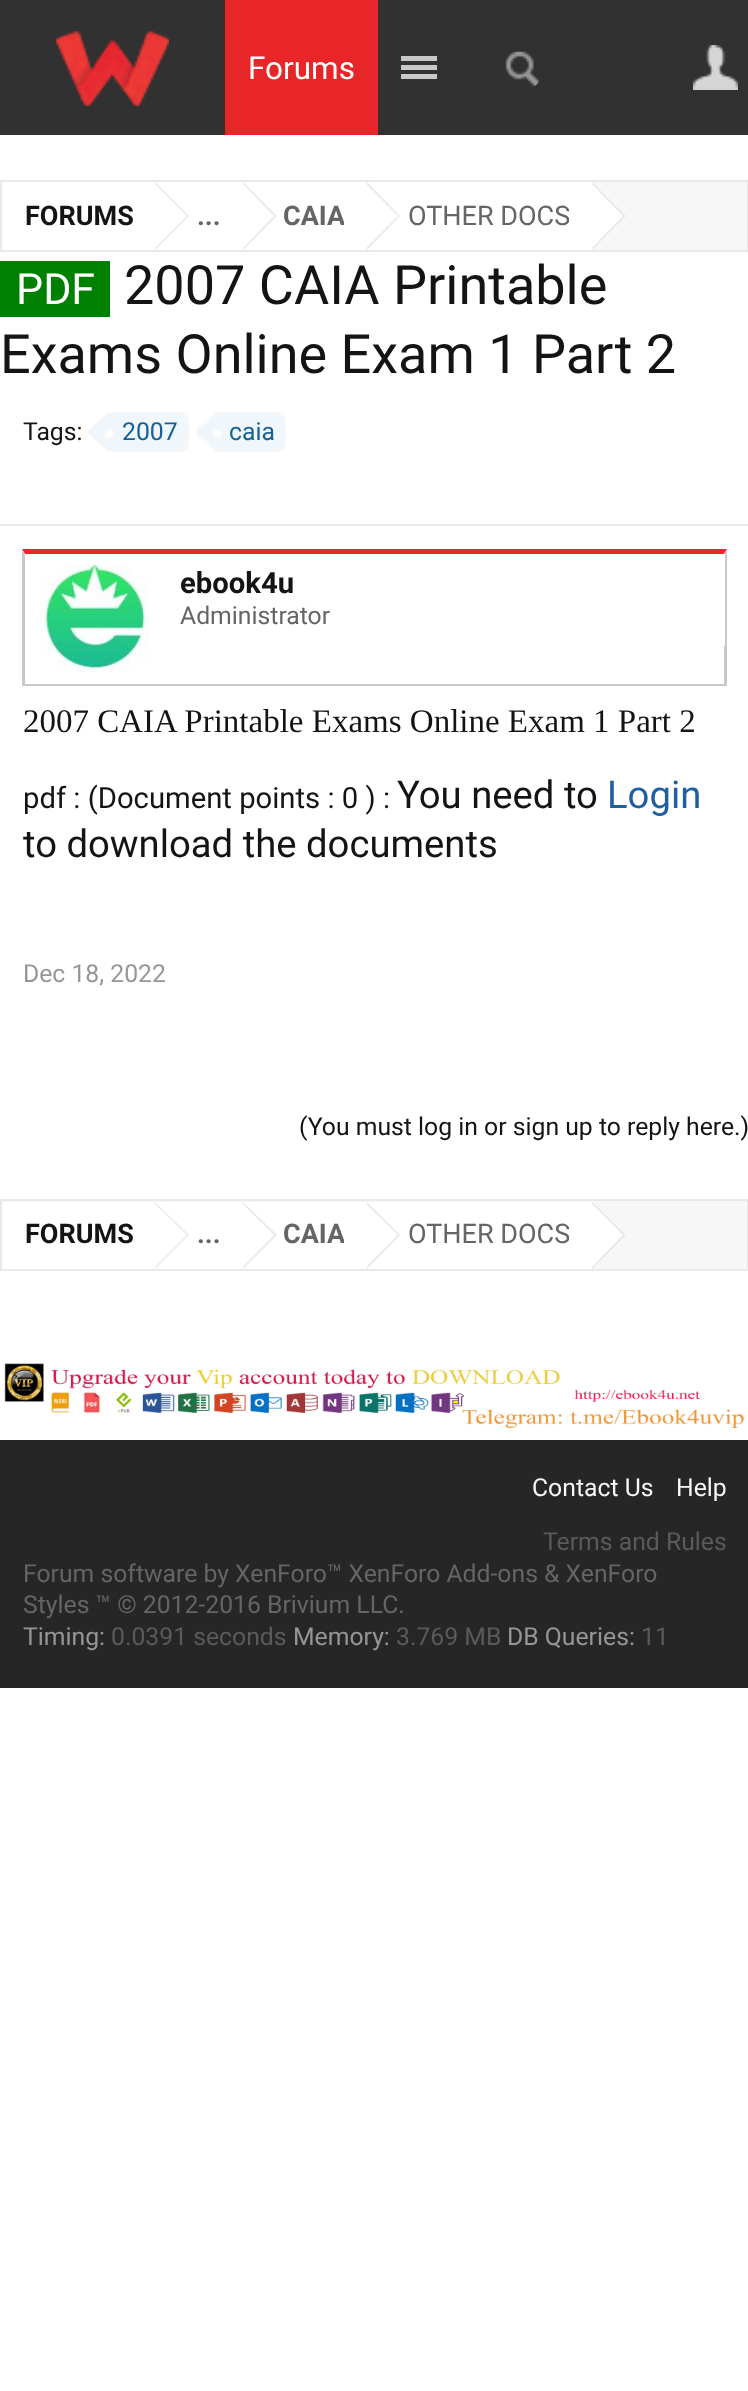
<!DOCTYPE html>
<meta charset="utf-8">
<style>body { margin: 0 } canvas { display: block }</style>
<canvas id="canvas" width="748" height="2391"></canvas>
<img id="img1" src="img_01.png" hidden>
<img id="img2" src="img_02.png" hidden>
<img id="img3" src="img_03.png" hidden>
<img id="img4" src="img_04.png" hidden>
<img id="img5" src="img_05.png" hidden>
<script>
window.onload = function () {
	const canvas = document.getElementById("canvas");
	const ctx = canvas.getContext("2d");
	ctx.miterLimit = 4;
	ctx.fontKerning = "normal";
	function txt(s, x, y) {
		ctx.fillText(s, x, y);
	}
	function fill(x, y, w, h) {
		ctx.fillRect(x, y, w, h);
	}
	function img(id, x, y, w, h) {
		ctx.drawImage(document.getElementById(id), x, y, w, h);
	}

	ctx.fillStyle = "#FFFFFF";
	fill(0, 0, 748, 2391);
	ctx.fillStyle = "#313131";
	fill(0, 0, 748, 135);
	img("img1", 56, 31, 113, 75);
	ctx.fillStyle = "#E82528";
	fill(225, 0, 153, 135);
	ctx.fillStyle = "#C8C8C8";
	fill(401, 56, 36, 5);
	fill(401, 65, 36, 5);
	fill(401, 74, 36, 5);
	img("img2", 505, 51, 34, 36);
	img("img3", 693, 45, 45, 45);
	ctx.fillStyle = "#F7F7F7";
	fill(592, 182, 155, 68);
	ctx.strokeStyle = "#E9E9E9";
	ctx.lineWidth = 2;
	ctx.strokeRect(1, 181, 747, 70);
	ctx.fillStyle = "#E9E9E9";
	ctx.beginPath();
	ctx.moveTo(155, 250);
	ctx.lineTo(155, 182);
	ctx.lineTo(189, 216);
	ctx.closePath();
	ctx.fill();
	ctx.fillStyle = "#FFFFFF";
	ctx.beginPath();
	ctx.moveTo(153, 250);
	ctx.lineTo(153, 182);
	ctx.lineTo(187, 216);
	ctx.closePath();
	ctx.fill();
	ctx.fillStyle = "#E9E9E9";
	ctx.beginPath();
	ctx.moveTo(243, 250);
	ctx.lineTo(243, 182);
	ctx.lineTo(277, 216);
	ctx.closePath();
	ctx.fill();
	ctx.fillStyle = "#FFFFFF";
	ctx.beginPath();
	ctx.moveTo(241, 250);
	ctx.lineTo(241, 182);
	ctx.lineTo(274, 216);
	ctx.closePath();
	ctx.fill();
	ctx.fillStyle = "#E9E9E9";
	ctx.beginPath();
	ctx.moveTo(367, 250);
	ctx.lineTo(367, 182);
	ctx.lineTo(400, 216);
	ctx.closePath();
	ctx.fill();
	ctx.fillStyle = "#FFFFFF";
	ctx.beginPath();
	ctx.moveTo(364, 250);
	ctx.lineTo(364, 182);
	ctx.lineTo(398, 216);
	ctx.closePath();
	ctx.fill();
	ctx.fillStyle = "#E9E9E9";
	ctx.beginPath();
	ctx.moveTo(592, 250);
	ctx.lineTo(592, 182);
	ctx.lineTo(626, 216);
	ctx.closePath();
	ctx.fill();
	ctx.fillStyle = "#FFFFFF";
	ctx.beginPath();
	ctx.moveTo(590, 250);
	ctx.lineTo(590, 182);
	ctx.lineTo(623, 216);
	ctx.closePath();
	ctx.fill();
	ctx.fillStyle = "#008000";
	fill(0, 261, 110, 56);
	ctx.fillStyle = "#F0F7FC";
	ctx.beginPath();
	ctx.roundRect(108, 412, 81, 40, [0, 9, 9, 0]);
	ctx.fill();
	ctx.fillStyle = "#F7F7F7";
	ctx.beginPath();
	ctx.moveTo(108, 412);
	ctx.lineTo(180, 412);
	ctx.bezierCurveTo(185, 412, 189, 416, 189, 421);
	ctx.lineTo(189, 443);
	ctx.bezierCurveTo(189, 448, 185, 452, 180, 452);
	ctx.lineTo(108, 452);
	ctx.closePath();
	ctx.moveTo(108, 414);
	ctx.lineTo(180, 414);
	ctx.bezierCurveTo(184, 414, 187, 417, 187, 421);
	ctx.lineTo(187, 443);
	ctx.bezierCurveTo(187, 447, 184, 450, 180, 450);
	ctx.lineTo(108, 450);
	ctx.closePath();
	ctx.fill("evenodd");
	ctx.beginPath();
	ctx.moveTo(108, 412);
	ctx.lineTo(108, 452);
	ctx.lineTo(88, 434);
	ctx.lineTo(88, 430);
	ctx.closePath();
	ctx.fill();
	ctx.fillStyle = "#F0F7FC";
	ctx.beginPath();
	ctx.moveTo(108, 414);
	ctx.lineTo(108, 450);
	ctx.lineTo(90, 434);
	ctx.lineTo(90, 430);
	ctx.closePath();
	ctx.fill();
	ctx.fillStyle = "#FFFFFF";
	ctx.beginPath();
	ctx.arc(109.5, 433.5, 4.5, 0, Math.PI * 2);
	ctx.fill();
	ctx.strokeStyle = "#F7F7F7";
	ctx.stroke();
	ctx.fillStyle = "#F0F7FC";
	ctx.beginPath();
	ctx.roundRect(216, 412, 70, 40, [0, 9, 9, 0]);
	ctx.fill();
	ctx.fillStyle = "#F7F7F7";
	ctx.beginPath();
	ctx.moveTo(216, 412);
	ctx.lineTo(277, 412);
	ctx.bezierCurveTo(282, 412, 286, 416, 286, 421);
	ctx.lineTo(286, 443);
	ctx.bezierCurveTo(286, 448, 282, 452, 277, 452);
	ctx.lineTo(216, 452);
	ctx.closePath();
	ctx.moveTo(216, 414);
	ctx.lineTo(277, 414);
	ctx.bezierCurveTo(280, 414, 284, 417, 284, 421);
	ctx.lineTo(284, 443);
	ctx.bezierCurveTo(284, 447, 280, 450, 277, 450);
	ctx.lineTo(216, 450);
	ctx.closePath();
	ctx.fill("evenodd");
	ctx.beginPath();
	ctx.moveTo(216, 412);
	ctx.lineTo(216, 452);
	ctx.lineTo(196, 434);
	ctx.lineTo(196, 430);
	ctx.closePath();
	ctx.fill();
	ctx.fillStyle = "#F0F7FC";
	ctx.beginPath();
	ctx.moveTo(216, 414);
	ctx.lineTo(216, 450);
	ctx.lineTo(198, 434);
	ctx.lineTo(198, 430);
	ctx.closePath();
	ctx.fill();
	ctx.fillStyle = "#FFFFFF";
	ctx.beginPath();
	ctx.arc(217.5, 433.5, 4.5, 0, Math.PI * 2);
	ctx.fill();
	ctx.stroke();
	ctx.fillStyle = "#E9E9E9";
	fill(0, 524, 748, 2);
	ctx.fillStyle = "#E82528";
	ctx.beginPath();
	ctx.moveTo(22, 549);
	ctx.lineTo(727, 549);
	ctx.lineTo(724, 554);
	ctx.lineTo(25, 554);
	ctx.closePath();
	ctx.fill();
	ctx.fillStyle = "#C8C8C8";
	ctx.beginPath();
	ctx.moveTo(727, 549);
	ctx.lineTo(727, 686);
	ctx.lineTo(724, 684);
	ctx.lineTo(724, 554);
	ctx.closePath();
	ctx.fill();
	fill(23, 684, 704, 2);
	ctx.beginPath();
	ctx.moveTo(22, 686);
	ctx.lineTo(22, 549);
	ctx.lineTo(25, 554);
	ctx.lineTo(25, 684);
	ctx.closePath();
	ctx.fill();
	img("img4", 40, 564, 109, 109);
	ctx.fillStyle = "#FFFFFF";
	fill(724, 554, 1, 92);
	ctx.fillStyle = "#F7F7F7";
	ctx.beginPath();
	ctx.rect(1, 1200, 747, 70);
	ctx.fill();
	ctx.strokeStyle = "#E9E9E9";
	ctx.stroke();
	ctx.fillStyle = "#FFFFFF";
	fill(2, 1202, 590, 67);
	ctx.fillStyle = "#E9E9E9";
	ctx.beginPath();
	ctx.moveTo(155, 1269);
	ctx.lineTo(155, 1202);
	ctx.lineTo(189, 1235);
	ctx.closePath();
	ctx.fill();
	ctx.fillStyle = "#FFFFFF";
	ctx.beginPath();
	ctx.moveTo(153, 1269);
	ctx.lineTo(153, 1202);
	ctx.lineTo(187, 1235);
	ctx.closePath();
	ctx.fill();
	ctx.fillStyle = "#E9E9E9";
	ctx.beginPath();
	ctx.moveTo(243, 1269);
	ctx.lineTo(243, 1202);
	ctx.lineTo(277, 1235);
	ctx.closePath();
	ctx.fill();
	ctx.fillStyle = "#FFFFFF";
	ctx.beginPath();
	ctx.moveTo(241, 1269);
	ctx.lineTo(241, 1202);
	ctx.lineTo(274, 1235);
	ctx.closePath();
	ctx.fill();
	ctx.fillStyle = "#E9E9E9";
	ctx.beginPath();
	ctx.moveTo(367, 1269);
	ctx.lineTo(367, 1202);
	ctx.lineTo(400, 1235);
	ctx.closePath();
	ctx.fill();
	ctx.fillStyle = "#FFFFFF";
	ctx.beginPath();
	ctx.moveTo(364, 1269);
	ctx.lineTo(364, 1202);
	ctx.lineTo(398, 1235);
	ctx.closePath();
	ctx.fill();
	ctx.fillStyle = "#E9E9E9";
	ctx.beginPath();
	ctx.moveTo(592, 1269);
	ctx.lineTo(592, 1202);
	ctx.lineTo(626, 1235);
	ctx.closePath();
	ctx.fill();
	ctx.fillStyle = "#FFFFFF";
	ctx.beginPath();
	ctx.moveTo(590, 1269);
	ctx.lineTo(590, 1202);
	ctx.lineTo(623, 1235);
	ctx.closePath();
	ctx.fill();
	img("img5", 4, 1363, 740, 65);
	ctx.fillStyle = "#262626";
	fill(0, 1440, 748, 248);
	ctx.font = "31.5px Roboto";
	ctx.fillStyle = "#FFFFFF";
	txt("Forums", 248, 79);
	ctx.font = "bold 27px Roboto";
	ctx.fillStyle = "#141414";
	txt("FORUMS", 25, 225);
	ctx.fillStyle = "#656565";
	txt("...", 197, 225);
	ctx.save();
	ctx.beginPath();
	ctx.rect(284, 182, 60, 68);
	ctx.clip();
	txt("CAIA", 283, 225);
	ctx.restore();
	ctx.save();
	ctx.beginPath();
	ctx.rect(407, 182, 162, 68);
	ctx.clip();
	ctx.font = "27px Roboto";
	txt("OTHER DOCS", 408, 225);
	ctx.restore();
	ctx.font = "43px Roboto";
	ctx.fillStyle = "#FFFFFF";
	txt("PDF", 16, 304);
	ctx.font = "54px Roboto";
	ctx.fillStyle = "#141414";
	txt("2007 CAIA Printable", 124, 304);
	txt("Exams Online Exam 1 Part 2", 0, 373);
	ctx.font = "24.75px Roboto";
	txt("Tags:", 23, 440);
	ctx.fillStyle = "#176093";
	txt("2007", 122, 440);
	txt("caia", 229, 440);
	ctx.font = "bold 29.25px Roboto";
	ctx.fillStyle = "#141414";
	txt("ebook4u", 180, 593);
	ctx.font = "24.75px Roboto";
	ctx.fillStyle = "#656565";
	txt("Administrator", 180, 624);
	ctx.font = "33px Liberation Serif";
	ctx.fillStyle = "#141414";
	txt("2007 CAIA Printable Exams Online Exam 1 Part 2", 23, 732);
	ctx.font = "29.25px Roboto";
	txt("pdf : (Document points : 0 ) :", 23, 808);
	ctx.font = "38.25px Roboto";
	txt("You need to", 397, 808);
	ctx.fillStyle = "#1F5FA1";
	txt("Login", 607, 808);
	ctx.fillStyle = "#141414";
	txt("to download the documents", 23, 857);
	ctx.font = "24.75px Roboto";
	ctx.fillStyle = "#969696";
	txt("Dec 18, 2022", 23, 982);
	ctx.fillStyle = "#141414";
	txt("(You must log in or sign up to reply here.)", 299, 1135);
	ctx.font = "bold 27px Roboto";
	txt("FORUMS", 25, 1243);
	ctx.fillStyle = "#656565";
	txt("...", 197, 1243);
	ctx.save();
	ctx.beginPath();
	ctx.rect(284, 1202, 60, 67);
	ctx.clip();
	txt("CAIA", 283, 1243);
	ctx.restore();
	ctx.save();
	ctx.beginPath();
	ctx.rect(407, 1202, 162, 67);
	ctx.clip();
	ctx.font = "27px Roboto";
	txt("OTHER DOCS", 408, 1243);
	ctx.restore();
	ctx.font = "24.75px Roboto";
	ctx.fillStyle = "#F7F7F7";
	txt("Contact Us", 532, 1496);
	txt("Help", 676, 1496);
	ctx.fillStyle = "#5A5A5A";
	txt("Terms and Rules", 543, 1550);
	ctx.fillStyle = "#656565";
	txt("Forum software by XenForo™ XenForo Add-ons & XenForo", 23, 1582);
	txt("Styles ™ © 2012-2016 Brivium LLC.", 23, 1613);
	ctx.fillStyle = "#969696";
	txt("Timing:", 23, 1645);
	ctx.fillStyle = "#5A5A5A";
	txt("0.0391 seconds", 111, 1645);
	ctx.fillStyle = "#969696";
	txt("Memory:", 293, 1645);
	ctx.fillStyle = "#5A5A5A";
	txt("3.769 MB", 396, 1645);
	ctx.fillStyle = "#969696";
	txt("DB Queries:", 507, 1645);
	ctx.fillStyle = "#5A5A5A";
	txt("11", 641, 1645);
};
</script>
